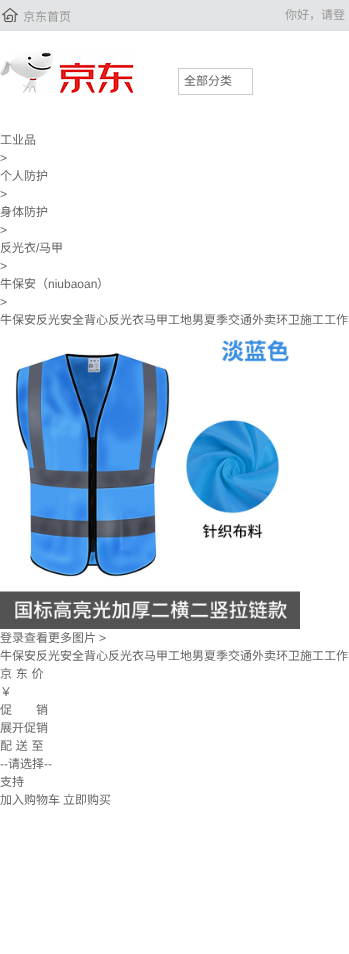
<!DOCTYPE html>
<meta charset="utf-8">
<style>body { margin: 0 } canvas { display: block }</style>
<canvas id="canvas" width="349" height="954"></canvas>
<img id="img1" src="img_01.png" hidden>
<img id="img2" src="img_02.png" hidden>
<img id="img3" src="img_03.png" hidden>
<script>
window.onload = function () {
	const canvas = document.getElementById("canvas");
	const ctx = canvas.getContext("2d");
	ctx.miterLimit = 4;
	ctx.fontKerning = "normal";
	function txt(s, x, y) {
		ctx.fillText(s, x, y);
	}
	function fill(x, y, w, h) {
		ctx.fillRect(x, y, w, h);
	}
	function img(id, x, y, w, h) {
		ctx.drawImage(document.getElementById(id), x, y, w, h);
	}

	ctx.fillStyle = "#FFFFFF";
	fill(0, 0, 349, 954);
	ctx.fillStyle = "#E3E4E5";
	fill(0, 0, 349, 30);
	ctx.fillStyle = "#DDDDDD";
	fill(0, 30, 349, 1);
	img("img1", 2, 8, 16, 15);
	img("img2", 0, 51, 134, 42);
	ctx.strokeStyle = "#CCCCCC";
	ctx.strokeRect(178.5, 68.5, 74, 26);
	img("img3", 0, 338, 300, 291);
	ctx.font = "12px Noto Sans CJK SC";
	ctx.fillStyle = "#999999";
	txt("京东首页", 23, 21);
	txt("你好，请登", 285, 19);
	ctx.fillStyle = "#666666";
	txt("全部分类", 184, 85);
	txt("工业品", 0, 144);
	ctx.font = "12px Liberation Sans";
	txt(">", 0, 162);
	ctx.font = "12px Noto Sans CJK SC";
	txt("个人防护", 0, 180);
	ctx.font = "12px Liberation Sans";
	txt(">", 0, 198);
	ctx.font = "12px Noto Sans CJK SC";
	txt("身体防护", 0, 216);
	ctx.font = "12px Liberation Sans";
	txt(">", 0, 234);
	ctx.font = "12px Noto Sans CJK SC";
	txt("反光衣", 0, 252);
	ctx.font = "12px Liberation Sans";
	txt("/", 36, 252);
	ctx.font = "12px Noto Sans CJK SC";
	txt("马甲", 39, 252);
	ctx.font = "12px Liberation Sans";
	txt(">", 0, 270);
	ctx.font = "12px Noto Sans CJK SC";
	txt("牛保安（", 0, 288);
	ctx.font = "12px Liberation Sans";
	txt("niubaoan", 48, 288);
	ctx.font = "12px Noto Sans CJK SC";
	txt("）", 97, 288);
	ctx.font = "12px Liberation Sans";
	txt(">", 0, 306);
	ctx.wordSpacing = "1px";
	ctx.font = "12px Noto Sans CJK SC";
	txt("牛保安反光安全背心反光衣马甲工地男夏季交通外卖环卫施工工作", 0, 324);
	ctx.wordSpacing = "0px";
	txt("登录查看更多图片", 0, 642);
	ctx.font = "12px Liberation Sans";
	txt(">", 99, 642);
	ctx.font = "12px Noto Sans CJK SC";
	txt("牛保安反光安全背心反光衣马甲工地男夏季交通外卖环卫施工工作", 0, 660);
	ctx.wordSpacing = "1px";
	txt("京 东 价", 0, 678);
	ctx.wordSpacing = "0px";
	txt("￥", 0, 696);
	txt("促　　销", 0, 714);
	txt("展开促销", 0, 732);
	ctx.wordSpacing = "1px";
	txt("配 送 至", 0, 750);
	ctx.wordSpacing = "0px";
	ctx.font = "12px Liberation Sans";
	txt("--", 0, 768);
	ctx.font = "12px Noto Sans CJK SC";
	txt("请选择", 8, 768);
	ctx.font = "12px Liberation Sans";
	txt("--", 44, 768);
	ctx.font = "12px Noto Sans CJK SC";
	txt("支持", 0, 786);
	txt("加入购物车", 0, 804);
	txt("立即购买", 63, 804);
};
</script>
